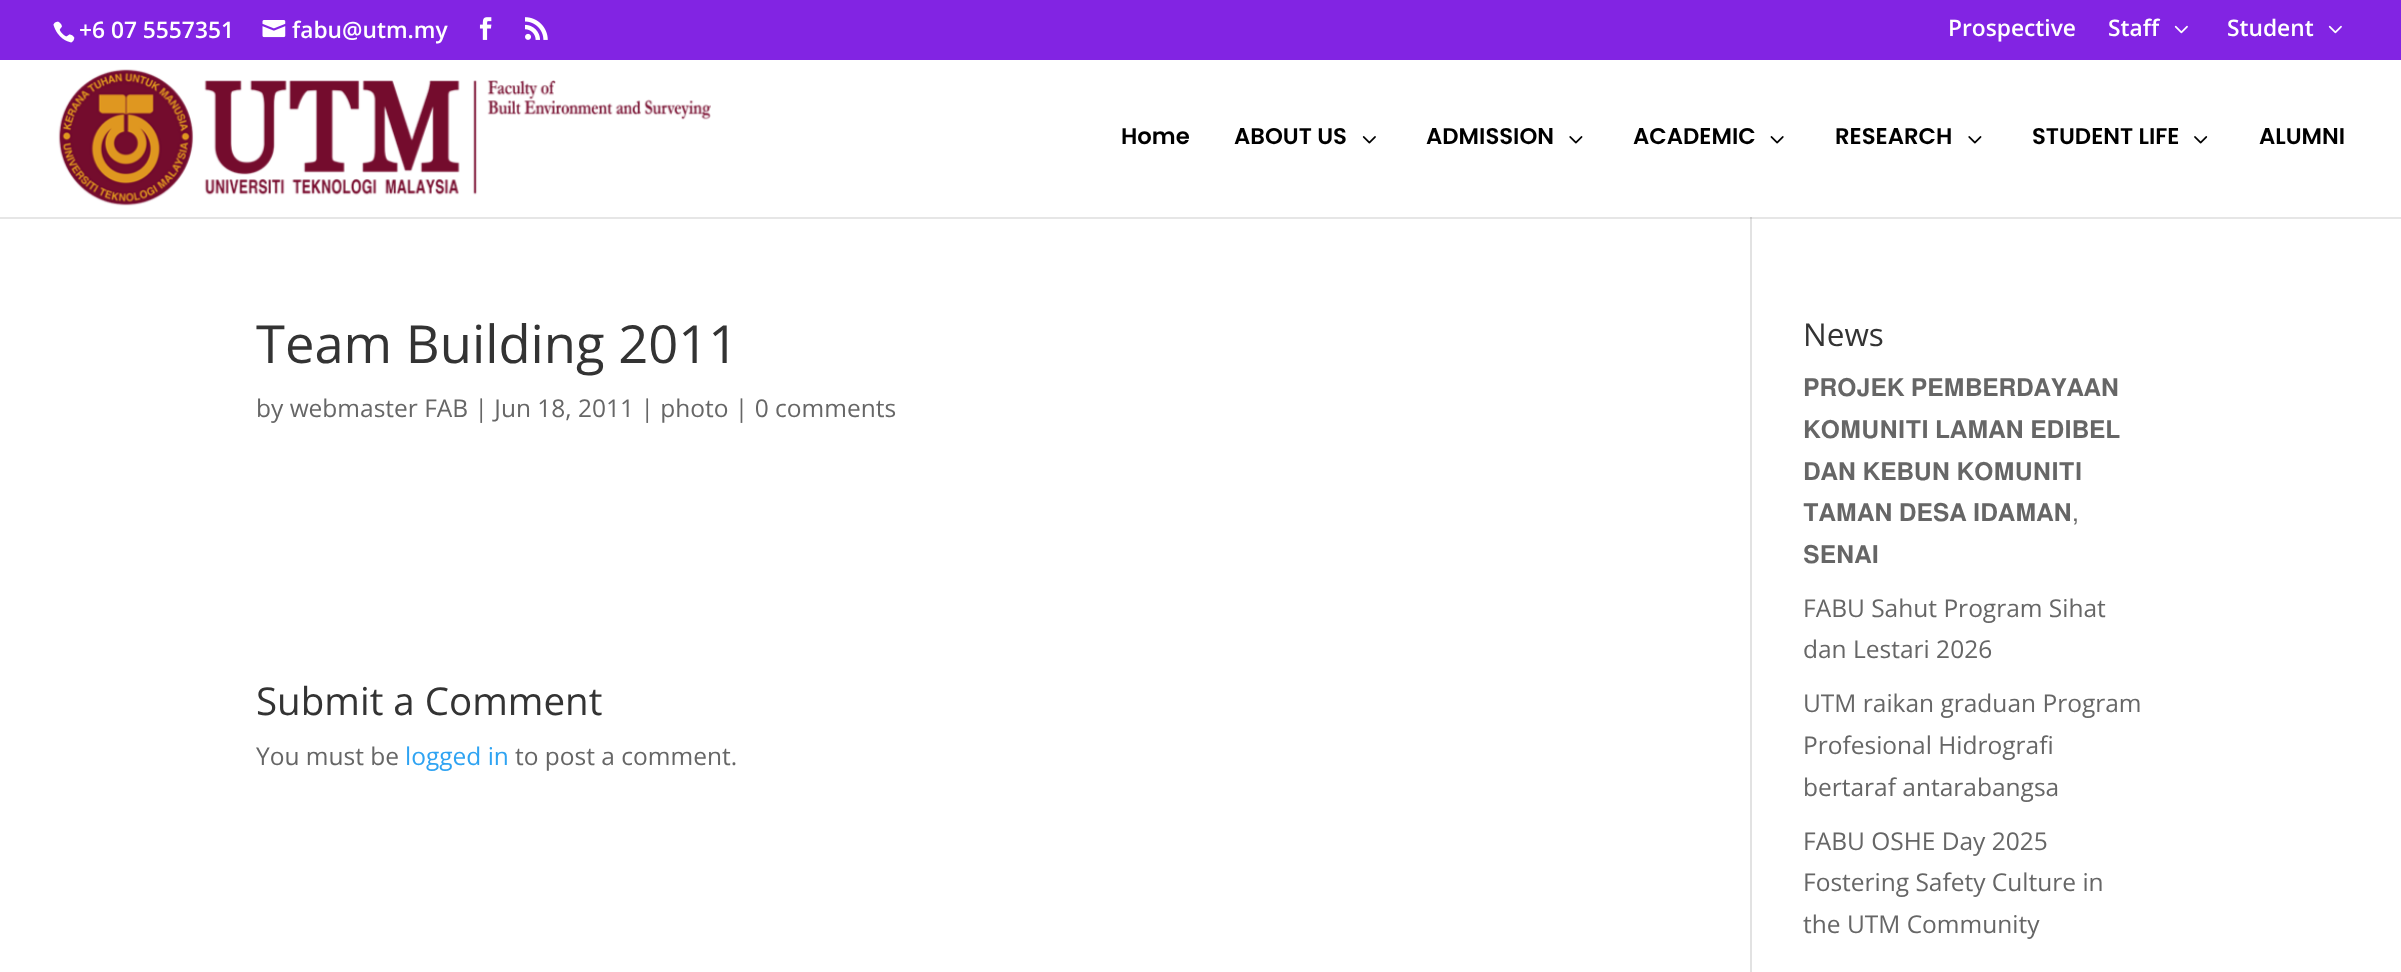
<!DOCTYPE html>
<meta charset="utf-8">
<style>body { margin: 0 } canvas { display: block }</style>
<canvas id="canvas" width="2401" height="972"></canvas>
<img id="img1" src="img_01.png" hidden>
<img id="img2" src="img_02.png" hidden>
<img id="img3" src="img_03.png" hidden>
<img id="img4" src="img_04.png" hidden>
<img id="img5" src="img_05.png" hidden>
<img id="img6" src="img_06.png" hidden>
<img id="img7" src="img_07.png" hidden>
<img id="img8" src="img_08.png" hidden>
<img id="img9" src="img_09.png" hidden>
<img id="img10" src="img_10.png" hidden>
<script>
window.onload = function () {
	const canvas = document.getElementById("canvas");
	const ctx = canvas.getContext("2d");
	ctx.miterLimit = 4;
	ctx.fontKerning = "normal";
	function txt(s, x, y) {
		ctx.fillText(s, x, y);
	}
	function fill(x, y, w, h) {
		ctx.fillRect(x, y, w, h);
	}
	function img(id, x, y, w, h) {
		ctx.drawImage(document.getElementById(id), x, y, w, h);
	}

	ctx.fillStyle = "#FFFFFF";
	fill(0, 0, 2401, 972);
	ctx.fillStyle = "#E6E6E6";
	fill(0, 217, 2401, 2);
	ctx.fillStyle = "#8224E3";
	fill(0, 0, 2401, 60);
	img("img1", 53, 21, 22, 22);
	img("img2", 262, 20, 24, 18);
	img("img3", 479, 17, 13, 23);
	img("img4", 525, 17, 23, 23);
	img("img5", 2174, 25, 14, 9);
	img("img5", 2328, 25, 14, 9);
	img("img6", 58, 69, 653, 137);
	img("img7", 1362, 136, 14, 8);
	img("img8", 1569, 136, 14, 8);
	img("img9", 1770, 136, 14, 8);
	img("img8", 1968, 136, 14, 8);
	img("img10", 2194, 136, 14, 8);
	ctx.fillStyle = "#E2E2E2";
	fill(1750, 217, 2, 755);
	ctx.fillStyle = "#CBCBCB";
	fill(1750, 217, 2, 2);
	ctx.font = "600 22.75px Open Sans";
	ctx.fillStyle = "#FFFFFF";
	txt("+6 07 5557351", 79, 38);
	txt("fabu@utm.my", 292, 38);
	txt("Prospective", 1948, 36);
	txt("Staff", 2108, 36);
	txt("Student", 2227, 36);
	ctx.font = "600 22.75px Poppins";
	ctx.fillStyle = "#000000";
	txt("Home", 1121, 144);
	txt("ABOUT US", 1234, 144);
	txt("ADMISSION", 1426, 144);
	txt("ACADEMIC", 1633, 144);
	txt("RESEARCH", 1835, 144);
	txt("STUDENT LIFE", 2032, 144);
	txt("ALUMNI", 2259, 144);
	ctx.font = "52.5px Open Sans";
	ctx.fillStyle = "#333333";
	txt("Team Building 2011", 256, 363);
	ctx.font = "24.5px Open Sans";
	ctx.fillStyle = "#666666";
	txt("by webmaster FAB | Jun 18, 2011 | photo | 0 comments", 256, 417);
	ctx.font = "38.5px Open Sans";
	ctx.fillStyle = "#333333";
	txt("Submit a Comment", 256, 715);
	ctx.font = "24.5px Open Sans";
	ctx.fillStyle = "#666666";
	txt("You must be", 256, 765);
	ctx.fillStyle = "#2EA3F2";
	txt("logged in", 405, 765);
	ctx.fillStyle = "#666666";
	txt("to post a comment.", 515, 765);
	ctx.font = "31.5px Open Sans";
	ctx.fillStyle = "#333333";
	txt("News", 1803, 346);
	ctx.font = "24.5px FreeSans";
	ctx.fillStyle = "#666666";
	txt("𝐏𝐑𝐎𝐉𝐄𝐊 𝐏𝐄𝐌𝐁𝐄𝐑𝐃𝐀𝐘𝐀𝐀𝐍", 1803, 396);
	txt("𝐊𝐎𝐌𝐔𝐍𝐈𝐓𝐈 𝐋𝐀𝐌𝐀𝐍 𝐄𝐃𝐈𝐁𝐄𝐋", 1803, 438);
	txt("𝐃𝐀𝐍 𝐊𝐄𝐁𝐔𝐍 𝐊𝐎𝐌𝐔𝐍𝐈𝐓𝐈", 1803, 480);
	txt("𝐓𝐀𝐌𝐀𝐍 𝐃𝐄𝐒𝐀 𝐈𝐃𝐀𝐌𝐀𝐍,", 1803, 521);
	txt("𝐒𝐄𝐍𝐀𝐈", 1803, 563);
	ctx.font = "24.5px Open Sans";
	txt("FABU Sahut Program Sihat", 1803, 617);
	txt("dan Lestari 2026", 1803, 658);
	txt("UTM raikan graduan Program", 1803, 712);
	txt("Profesional Hidrografi", 1803, 754);
	txt("bertaraf antarabangsa", 1803, 796);
	txt("FABU OSHE Day 2025", 1803, 850);
	txt("Fostering Safety Culture in", 1803, 891);
	txt("the UTM Community", 1803, 933);
};
</script>
